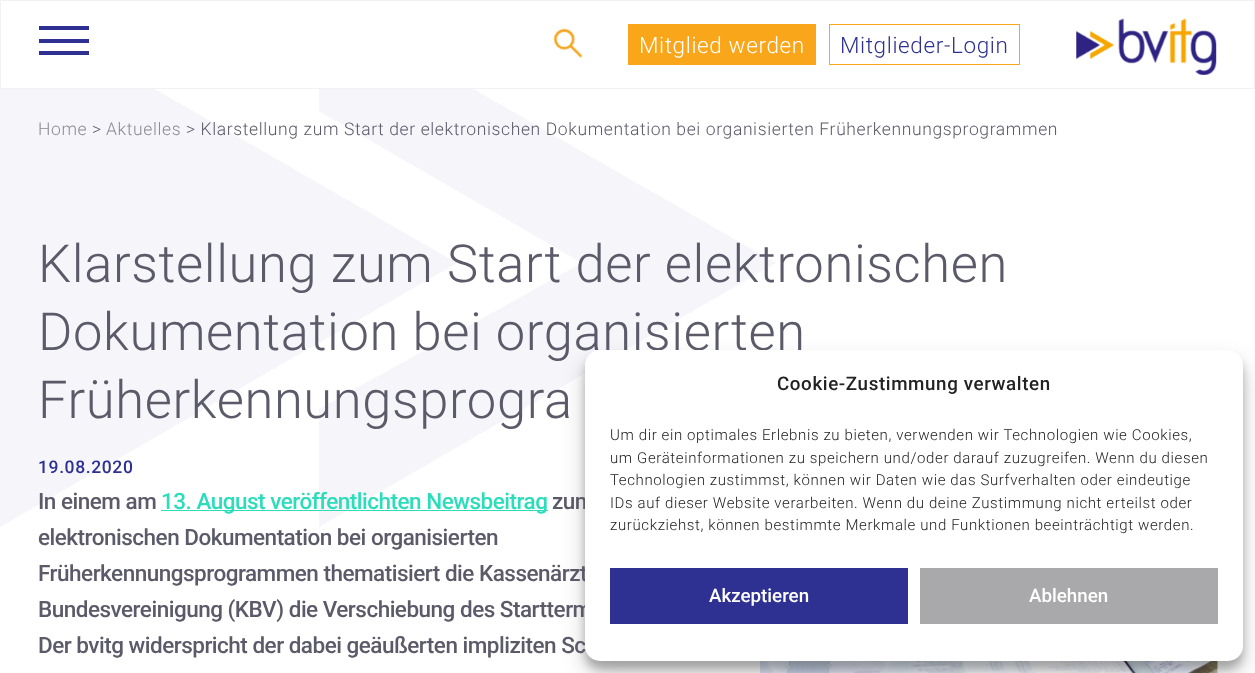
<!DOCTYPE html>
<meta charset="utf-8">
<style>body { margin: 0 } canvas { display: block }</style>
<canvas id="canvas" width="1255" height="673"></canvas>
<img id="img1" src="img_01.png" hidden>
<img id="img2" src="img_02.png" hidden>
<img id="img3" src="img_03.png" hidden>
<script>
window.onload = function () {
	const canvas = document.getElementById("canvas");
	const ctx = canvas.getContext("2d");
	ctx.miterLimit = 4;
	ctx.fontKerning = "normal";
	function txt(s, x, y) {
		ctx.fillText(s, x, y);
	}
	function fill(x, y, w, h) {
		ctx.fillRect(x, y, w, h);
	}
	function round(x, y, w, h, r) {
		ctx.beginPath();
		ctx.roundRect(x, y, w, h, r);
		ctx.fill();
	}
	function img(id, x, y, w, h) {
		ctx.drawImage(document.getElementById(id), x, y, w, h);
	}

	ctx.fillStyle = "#FFFFFF";
	fill(0, 0, 1255, 673);
	ctx.fillStyle = "#F5F5FA";
	ctx.beginPath();
	ctx.moveTo(0, 263);
	ctx.lineTo(0, 0);
	ctx.lineTo(457, 263);
	ctx.lineTo(0, 527);
	ctx.closePath();
	ctx.fill();
	ctx.beginPath();
	ctx.moveTo(548, 132);
	ctx.lineTo(319, 0);
	ctx.lineTo(319, 111);
	ctx.lineTo(582, 263);
	ctx.lineTo(319, 409);
	ctx.lineTo(319, 527);
	ctx.lineTo(776, 263);
	ctx.closePath();
	ctx.fill();
	ctx.fillStyle = "#FFFFFF";
	fill(1, 1, 470, 87);
	ctx.strokeStyle = "#F2F2F2";
	ctx.strokeRect(0.5, 0.5, 1254, 88);
	ctx.fillStyle = "#2E3192";
	fill(39, 39, 50, 4);
	fill(39, 26, 50, 4);
	fill(39, 51, 50, 4);
	img("img1", 553, 28, 30, 30);
	ctx.fillStyle = "#FAA61A";
	fill(628, 24, 188, 41);
	ctx.strokeStyle = "#FAA61A";
	ctx.strokeRect(829.5, 24.5, 190, 40);
	img("img2", 1076, 18, 141, 57);
	ctx.fillStyle = "#2BDDBB";
	fill(161, 510, 387, 1);
	img("img3", 760, 661, 458, 12);
	ctx.fillStyle = "rgba(0, 0, 0, 0.23)";
	ctx.filter = "blur(4px)";
	ctx.beginPath();
	ctx.roundRect(585, 358, 658, 311, 15);
	ctx.fill();
	ctx.filter = "none";
	ctx.fillStyle = "rgba(0, 0, 0, 0.19)";
	ctx.filter = "blur(12.5px)";
	ctx.beginPath();
	ctx.roundRect(585, 363, 658, 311, 15);
	ctx.fill();
	ctx.filter = "none";
	ctx.letterSpacing = "0.62px";
	ctx.font = "300 22.5px Roboto";
	ctx.fillStyle = "#FFFFFF";
	txt("Mitglied werden", 639, 53);
	ctx.fillStyle = "#2E3192";
	txt("Mitglieder-Login", 840, 53);
	ctx.font = "300 17.5px Roboto";
	ctx.fillStyle = "#8B8B95";
	txt("Home", 38, 135);
	ctx.fillStyle = "#5A5A69";
	txt(">", 92, 135);
	ctx.fillStyle = "#8B8B95";
	txt("Aktuelles", 106, 135);
	ctx.fillStyle = "#5A5A69";
	txt("> Klarstellung zum Start der elektronischen Dokumentation bei organisierten Früherkennungsprogrammen", 186, 135);
	ctx.font = "300 52.5px Roboto";
	txt("Klarstellung zum Start der elektronischen", 38, 282);
	txt("Dokumentation bei organisierten", 38, 350);
	txt("Früherkennungsprogra", 38, 418);
	ctx.font = "500 17.5px Roboto";
	ctx.fillStyle = "#2E3192";
	txt("19.08.2020", 38, 473);
	ctx.letterSpacing = "-0.5px";
	ctx.font = "500 22.5px Roboto";
	ctx.fillStyle = "#5A5A69";
	txt("In einem am", 38, 509);
	ctx.fillStyle = "#2BDDBB";
	txt("13. August veröffentlichten Newsbeitrag", 161, 509);
	ctx.fillStyle = "#5A5A69";
	txt("zum", 552, 509);
	txt("elektronischen Dokumentation bei organisierten", 38, 545);
	txt("Früherkennungsprogrammen thematisiert die Kassenärzt", 38, 581);
	txt("Bundesvereinigung (KBV) die Verschiebung des Startterm", 38, 617);
	txt("Der bvitg widerspricht der dabei geäußerten impliziten Sc", 38, 653);
	ctx.fillStyle = "#FFFFFF";
	round(585, 350, 658, 311, 15);
	ctx.letterSpacing = "0.62px";
	ctx.font = "500 18.75px Roboto";
	ctx.fillStyle = "#222222";
	txt("Cookie-Zustimmung verwalten", 777, 390);
	ctx.font = "300 15px Roboto";
	txt("Um dir ein optimales Erlebnis zu bieten, verwenden wir Technologien wie Cookies,", 610, 440);
	txt("um Geräteinformationen zu speichern und/oder darauf zuzugreifen. Wenn du diesen", 610, 463);
	txt("Technologien zustimmst, können wir Daten wie das Surfverhalten oder eindeutige", 610, 485);
	txt("IDs auf dieser Website verarbeiten. Wenn du deine Zustimmung nicht erteilst oder", 610, 508);
	txt("zurückziehst, können bestimmte Merkmale und Funktionen beeinträchtigt werden.", 610, 530);
	ctx.fillStyle = "#2E3192";
	fill(610, 568, 298, 56);
	ctx.letterSpacing = "0px";
	ctx.font = "500 18.75px Roboto";
	ctx.fillStyle = "#FFFFFF";
	txt("Akzeptieren", 709, 602);
	ctx.fillStyle = "#A9A9AC";
	fill(920, 568, 298, 56);
	ctx.fillStyle = "#FFFFFF";
	txt("Ablehnen", 1029, 602);
};
</script>
